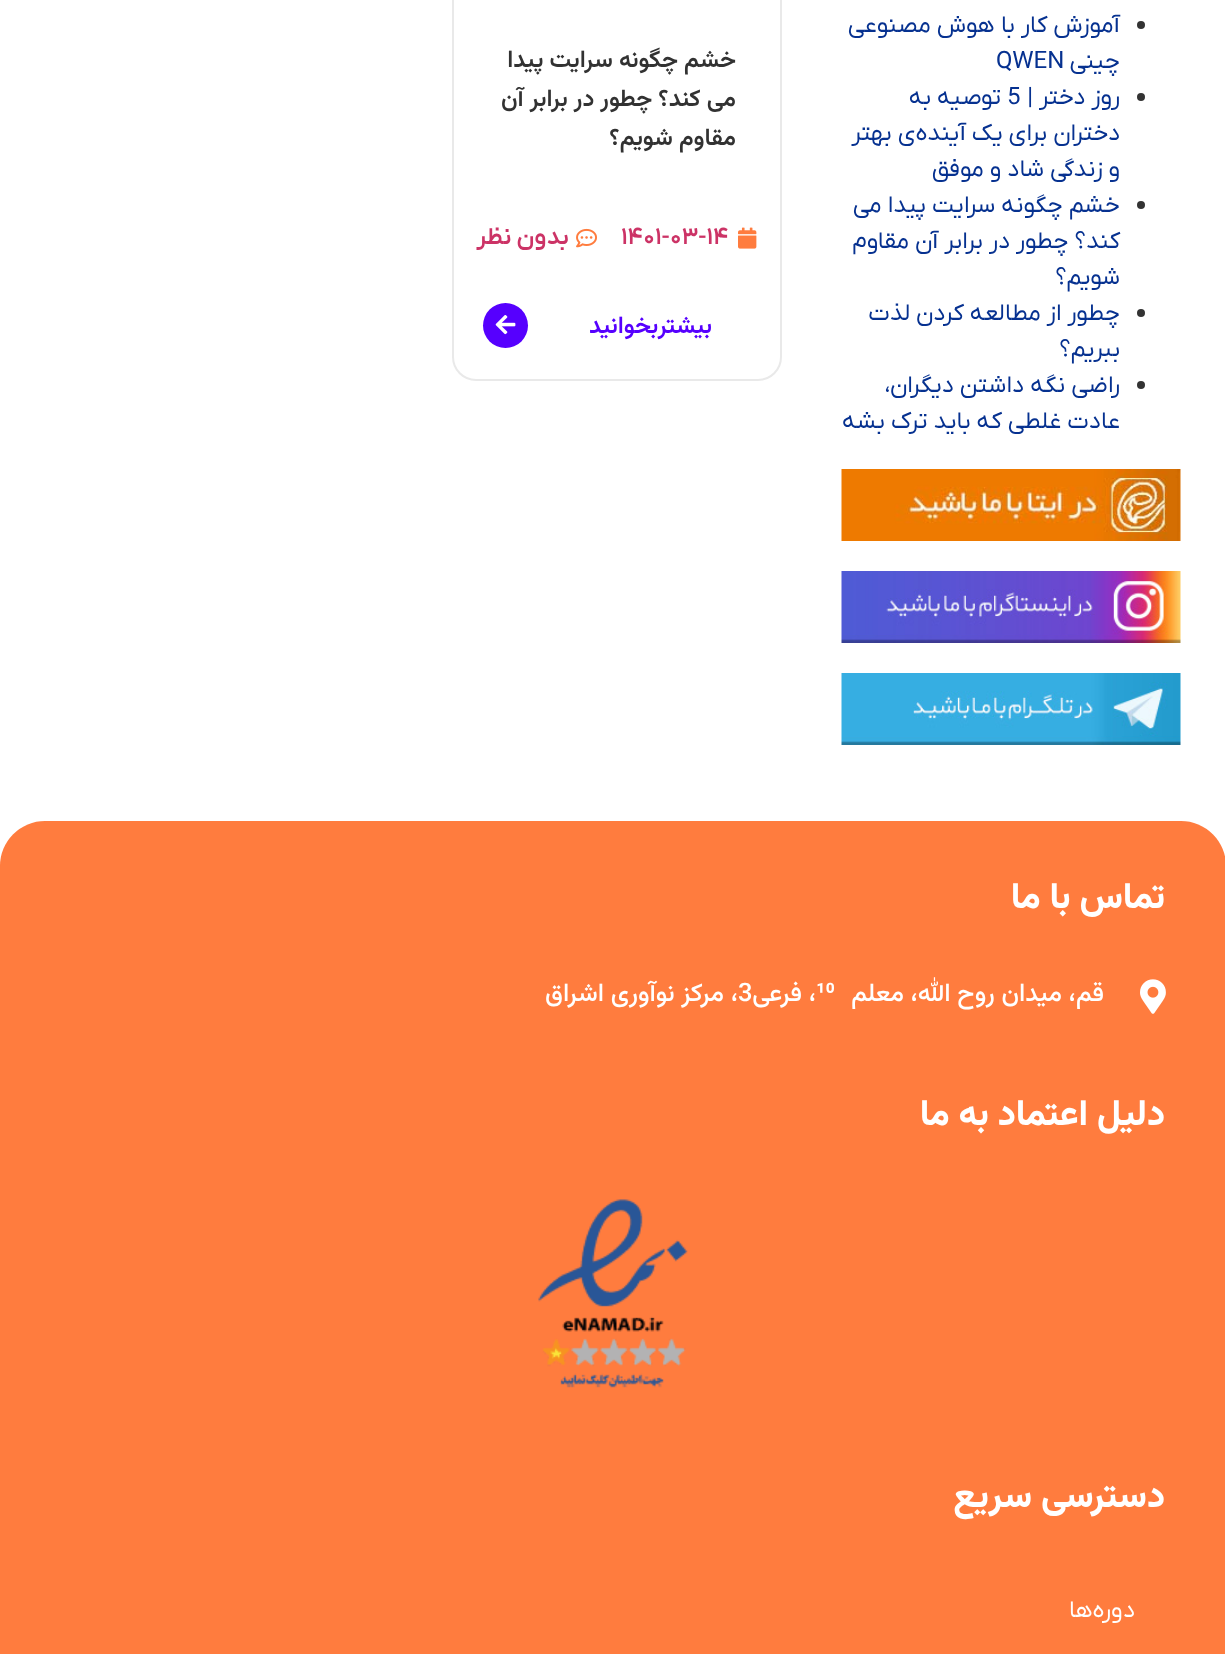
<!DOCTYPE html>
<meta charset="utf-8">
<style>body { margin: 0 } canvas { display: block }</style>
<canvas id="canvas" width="1225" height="1654"></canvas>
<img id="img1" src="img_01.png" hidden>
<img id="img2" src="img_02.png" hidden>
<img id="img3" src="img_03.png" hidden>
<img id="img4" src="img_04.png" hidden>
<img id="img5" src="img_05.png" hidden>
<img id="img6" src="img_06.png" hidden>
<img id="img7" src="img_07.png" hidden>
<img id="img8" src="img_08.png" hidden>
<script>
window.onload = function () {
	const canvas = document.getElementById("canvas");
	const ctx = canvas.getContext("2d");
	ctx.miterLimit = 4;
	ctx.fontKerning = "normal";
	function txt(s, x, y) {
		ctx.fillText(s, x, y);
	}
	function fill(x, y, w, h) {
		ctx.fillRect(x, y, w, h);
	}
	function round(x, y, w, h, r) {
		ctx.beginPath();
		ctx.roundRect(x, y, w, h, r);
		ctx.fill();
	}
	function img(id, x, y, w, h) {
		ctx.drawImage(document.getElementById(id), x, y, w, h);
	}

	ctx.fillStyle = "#FFFFFF";
	fill(0, 0, 1225, 1654);
	ctx.fillStyle = "#333333";
	ctx.beginPath();
	ctx.arc(1141, 25, 4, 0, Math.PI * 2);
	ctx.fill();
	ctx.beginPath();
	ctx.arc(1141, 97, 4, 0, Math.PI * 2);
	ctx.fill();
	ctx.beginPath();
	ctx.arc(1141, 205, 4, 0, Math.PI * 2);
	ctx.fill();
	ctx.beginPath();
	ctx.arc(1141, 313, 4, 0, Math.PI * 2);
	ctx.fill();
	ctx.beginPath();
	ctx.arc(1141, 385, 4, 0, Math.PI * 2);
	ctx.fill();
	img("img1", 841, 469, 340, 72);
	img("img2", 841, 571, 340, 72);
	img("img3", 841, 673, 340, 72);
	ctx.beginPath();
	ctx.roundRect(453, -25, 328, 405, 23);
	ctx.strokeStyle = "#E9E9E9";
	ctx.lineWidth = 2;
	ctx.stroke();
	img("img4", 738, 227, 19, 22);
	img("img5", 576, 228, 21, 20);
	ctx.fillStyle = "#5600FE";
	ctx.beginPath();
	ctx.arc(505.5, 325.5, 22.5, 0, Math.PI * 2);
	ctx.fill();
	img("img6", 495, 315, 21, 20);
	ctx.fillStyle = "#FF7C3E";
	round(0, 821, 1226, 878, 45);
	img("img7", 1140, 979, 26, 35);
	img("img8", 538, 1199, 150, 189);
	ctx.direction = "rtl";
	ctx.font = "24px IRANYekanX";
	ctx.fillStyle = "#063190";
	txt("آموزش کار با هوش مصنوعی", 1120, 32);
	txt("چینی", 1120, 68);
	ctx.direction = "ltr";
	txt("QWEN", 996, 68);
	ctx.direction = "rtl";
	txt("روز دختر |", 1120, 104);
	ctx.direction = "ltr";
	txt("5", 1007, 104);
	ctx.direction = "rtl";
	txt("توصیه به", 1001, 104);
	txt("دختران برای یک آینده‌ی بهتر", 1120, 140);
	txt("و زندگی شاد و موفق", 1120, 176);
	txt("خشم چگونه سرایت پیدا می", 1120, 212);
	txt("کند؟ چطور در برابر آن مقاوم", 1120, 248);
	txt("شویم؟", 1120, 284);
	txt("چطور از مطالعه کردن لذت", 1120, 320);
	txt("ببریم؟", 1120, 356);
	txt("راضی نگه داشتن دیگران،", 1120, 392);
	txt("عادت غلطی که باید ترک بشه", 1120, 428);
	ctx.font = "600 24px Vazirmatn";
	ctx.fillStyle = "#323232";
	txt("خشم چگونه سرایت پیدا", 736, 67);
	txt("می کند؟ چطور در برابر آن", 736, 106);
	txt("مقاوم شویم؟", 736, 145);
	ctx.direction = "ltr";
	ctx.font = "600 24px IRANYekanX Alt";
	ctx.fillStyle = "#CC3366";
	txt("1401-03-14", 621, 244);
	ctx.direction = "rtl";
	ctx.font = "600 24px IRANYekanX";
	txt("بدون نظر", 569, 244);
	ctx.font = "600 24px Vazirmatn";
	ctx.fillStyle = "#5600FE";
	txt("بیشتربخوانید", 712, 333);
	ctx.font = "800 36px Vazirmatn";
	ctx.fillStyle = "#FFFFFF";
	txt("تماس با ما", 1165, 908);
	ctx.font = "500 25.5px Vazirmatn";
	txt("قم، میدان روح الله، معلم", 1104, 1001);
	ctx.direction = "ltr";
	ctx.font = "500 25.5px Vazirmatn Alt";
	txt("10", 816, 1001);
	ctx.direction = "rtl";
	ctx.font = "500 25.5px Vazirmatn";
	txt("، فرعی", 816, 1001);
	ctx.direction = "ltr";
	txt("3", 738, 1001);
	ctx.direction = "rtl";
	txt("، مرکز نوآوری اشراق", 738, 1001);
	ctx.font = "800 36px Vazirmatn";
	txt("دلیل اعتماد به ما", 1165, 1125);
	txt("دسترسی سریع", 1165, 1507);
	ctx.font = "24px IRANYekanX";
	txt("دوره‌ها", 1135, 1617);
};
</script>
